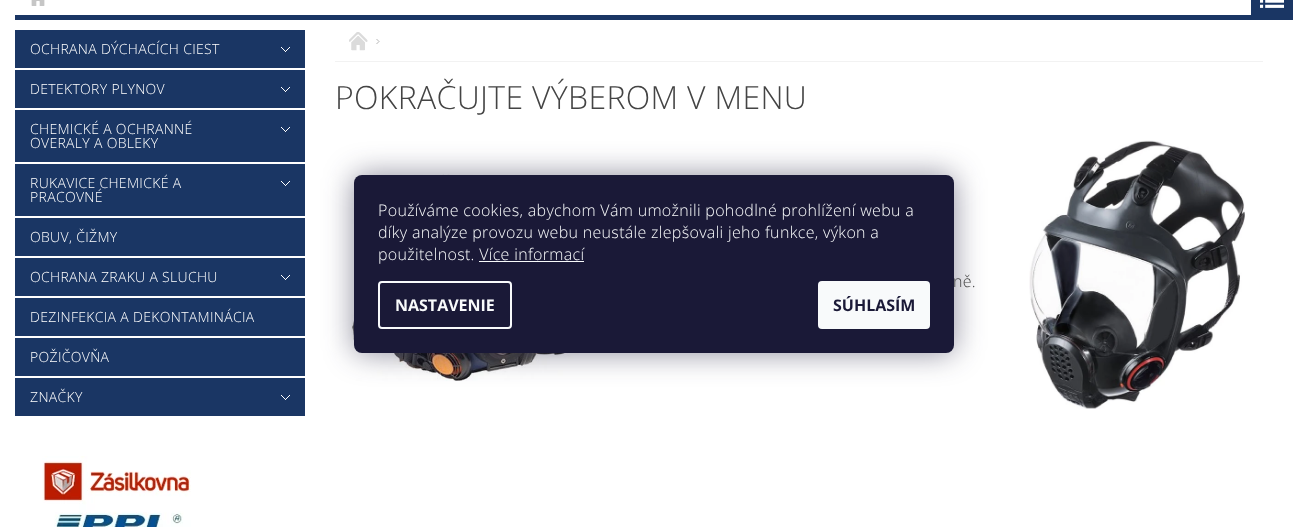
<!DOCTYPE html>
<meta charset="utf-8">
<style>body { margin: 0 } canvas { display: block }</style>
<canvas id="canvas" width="1308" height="527"></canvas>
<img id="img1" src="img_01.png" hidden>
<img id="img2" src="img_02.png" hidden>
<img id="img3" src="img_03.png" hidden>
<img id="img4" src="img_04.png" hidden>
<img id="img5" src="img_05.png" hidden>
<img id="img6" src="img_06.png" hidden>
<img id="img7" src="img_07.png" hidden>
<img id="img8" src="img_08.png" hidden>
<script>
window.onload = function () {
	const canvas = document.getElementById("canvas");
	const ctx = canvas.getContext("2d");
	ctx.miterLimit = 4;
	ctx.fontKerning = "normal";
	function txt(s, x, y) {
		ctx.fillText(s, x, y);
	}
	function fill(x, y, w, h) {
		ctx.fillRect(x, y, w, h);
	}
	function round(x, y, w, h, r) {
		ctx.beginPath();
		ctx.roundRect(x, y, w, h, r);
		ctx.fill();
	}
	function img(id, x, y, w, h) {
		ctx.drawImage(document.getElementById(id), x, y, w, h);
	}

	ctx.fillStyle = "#FFFFFF";
	fill(0, 0, 1308, 527);
	ctx.fillStyle = "#1A3664";
	fill(15, 15, 1236, 5);
	img("img1", 31, 0, 14, 6);
	fill(1251, 0, 42, 20);
	img("img2", 1260, 0, 24, 8);
	fill(15, 30, 290, 38);
	img("img3", 281, 47, 9, 5);
	fill(15, 70, 290, 38);
	img("img3", 281, 87, 9, 5);
	fill(15, 110, 290, 52);
	img("img3", 281, 127, 9, 5);
	fill(15, 164, 290, 52);
	img("img3", 281, 181, 9, 5);
	fill(15, 218, 290, 38);
	fill(15, 258, 290, 38);
	img("img3", 281, 275, 9, 5);
	fill(15, 298, 290, 38);
	fill(15, 338, 290, 38);
	fill(15, 378, 290, 38);
	img("img3", 281, 395, 9, 5);
	img("img4", 42, 456, 149, 71);
	ctx.fillStyle = "#F2F2F2";
	fill(335, 61, 928, 1);
	img("img5", 349, 32, 19, 19);
	img("img6", 376, 39, 4, 5);
	img("img7", 351, 174, 228, 207);
	img("img8", 1029, 140, 216, 269);
	ctx.fillStyle = "rgba(27, 25, 57, 0.5)";
	ctx.filter = "blur(15px)";
	ctx.beginPath();
	ctx.roundRect(354, 175, 600, 178, 8);
	ctx.fill();
	ctx.filter = "none";
	ctx.fillStyle = "#1A1937";
	round(354, 175, 600, 178, 8);
	ctx.fillStyle = "#F8FAFB";
	fill(479, 261, 105, 1);
	ctx.beginPath();
	ctx.roundRect(379, 282, 132, 46, 3);
	ctx.strokeStyle = "#F8FAFB";
	ctx.lineWidth = 2;
	ctx.stroke();
	round(818, 281, 112, 48, 4);
	ctx.letterSpacing = "0.32px";
	ctx.font = "300 14px Open Sans";
	ctx.fillStyle = "#FFFFFF";
	txt("OCHRANA DÝCHACÍCH CIEST", 30, 54);
	txt("DETEKTORY PLYNOV", 30, 94);
	txt("CHEMICKÉ A OCHRANNÉ", 30, 134);
	txt("OVERALY A OBLEKY", 30, 148);
	txt("RUKAVICE CHEMICKÉ A", 30, 188);
	txt("PRACOVNÉ", 30, 202);
	txt("OBUV, ČIŽMY", 30, 242);
	txt("OCHRANA ZRAKU A SLUCHU", 30, 282);
	txt("DEZINFEKCIA A DEKONTAMINÁCIA", 30, 322);
	txt("POŽIČOVŇA", 30, 362);
	txt("ZNAČKY", 30, 402);
	ctx.font = "300 32px Open Sans";
	ctx.fillStyle = "#444444";
	txt("POKRAČUJTE VÝBEROM V MENU", 335, 109);
	ctx.font = "300 16px Open Sans";
	txt("ně.", 953, 287);
	ctx.fillStyle = "#F8FAFB";
	txt("Používáme cookies, abychom Vám umožnili pohodlné prohlížení webu a", 378, 216);
	txt("díky analýze provozu webu neustále zlepšovali jeho funkce, výkon a", 378, 238);
	txt("použitelnost. Více informací", 378, 260);
	ctx.letterSpacing = "0px";
	ctx.font = "bold 16px Open Sans";
	txt("NASTAVENIE", 395, 311);
	ctx.fillStyle = "#1A1937";
	txt("SÚHLASÍM", 833, 311);
};
</script>
